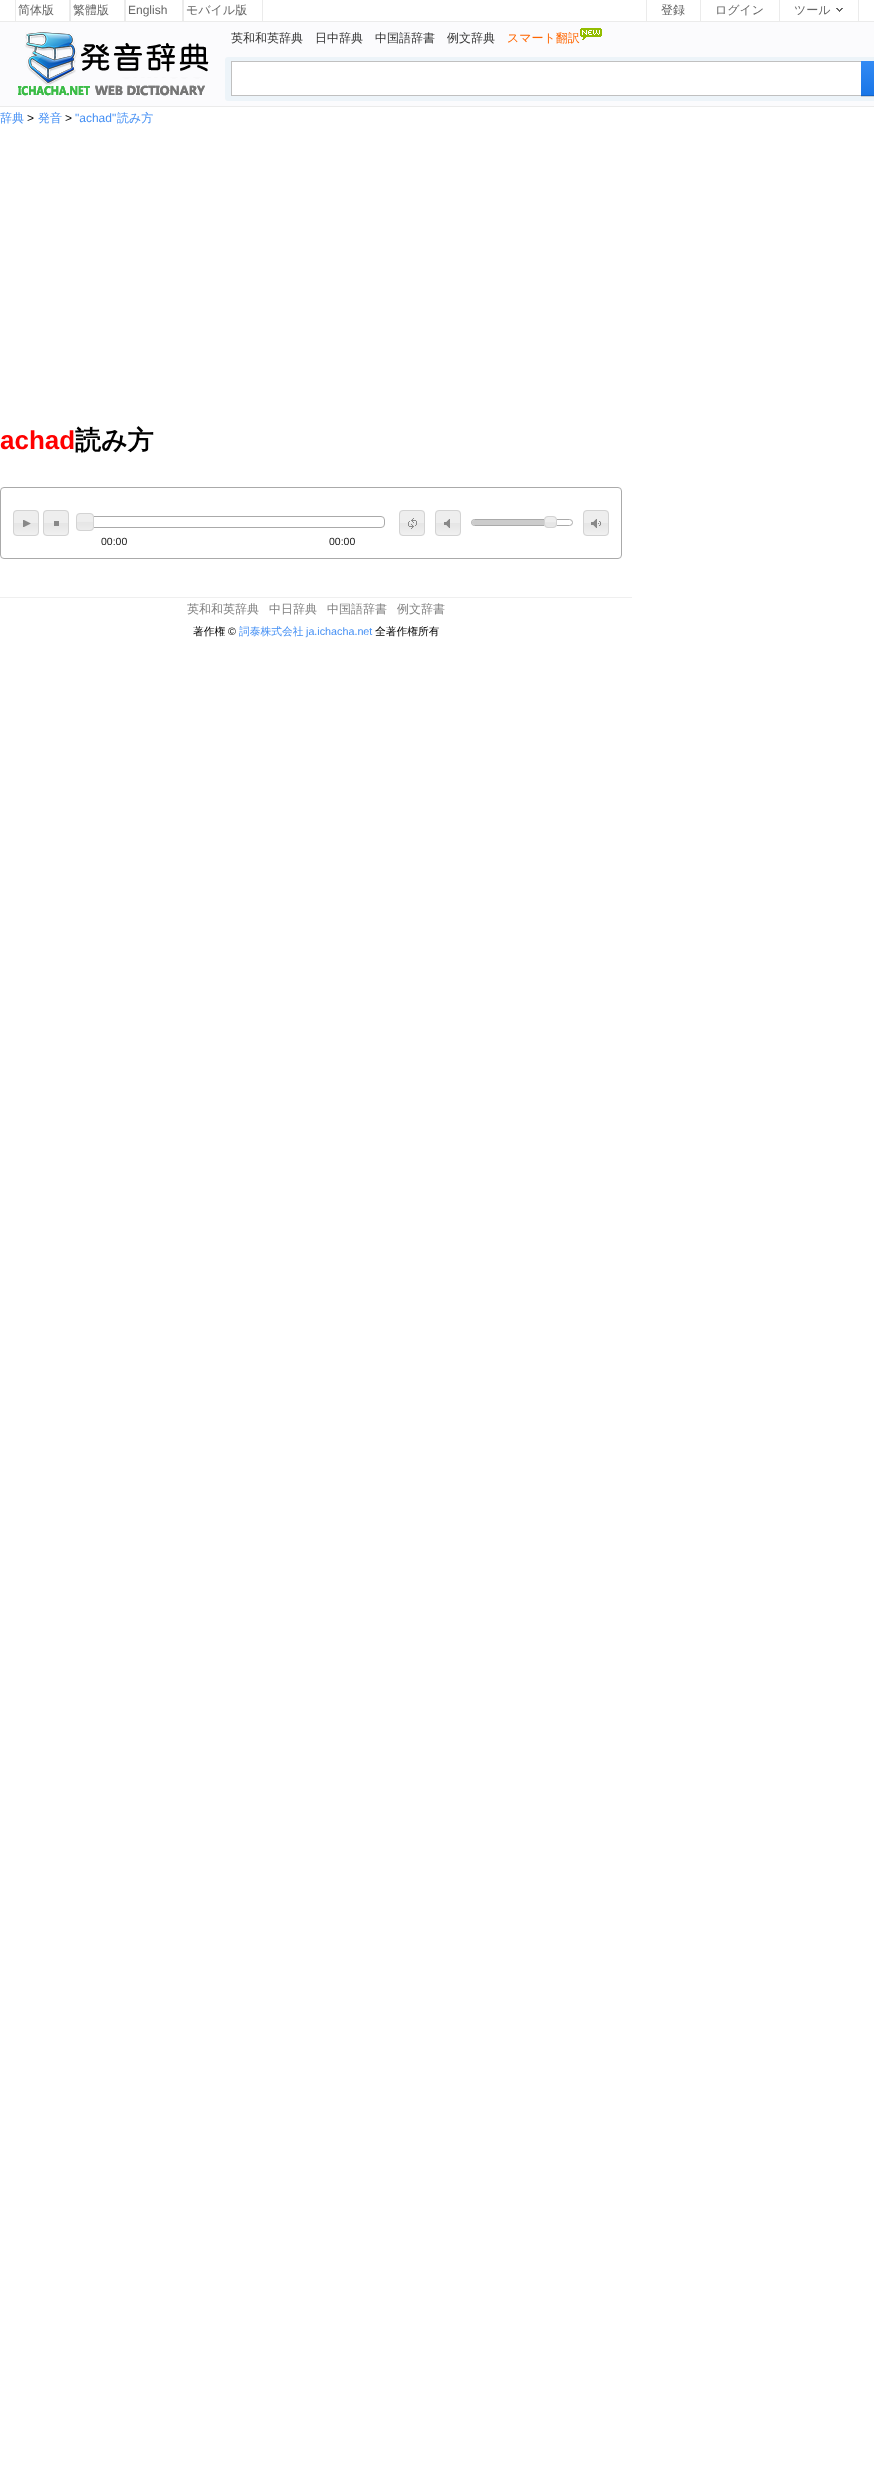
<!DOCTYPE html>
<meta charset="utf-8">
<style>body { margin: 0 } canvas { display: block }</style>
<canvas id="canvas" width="874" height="2485"></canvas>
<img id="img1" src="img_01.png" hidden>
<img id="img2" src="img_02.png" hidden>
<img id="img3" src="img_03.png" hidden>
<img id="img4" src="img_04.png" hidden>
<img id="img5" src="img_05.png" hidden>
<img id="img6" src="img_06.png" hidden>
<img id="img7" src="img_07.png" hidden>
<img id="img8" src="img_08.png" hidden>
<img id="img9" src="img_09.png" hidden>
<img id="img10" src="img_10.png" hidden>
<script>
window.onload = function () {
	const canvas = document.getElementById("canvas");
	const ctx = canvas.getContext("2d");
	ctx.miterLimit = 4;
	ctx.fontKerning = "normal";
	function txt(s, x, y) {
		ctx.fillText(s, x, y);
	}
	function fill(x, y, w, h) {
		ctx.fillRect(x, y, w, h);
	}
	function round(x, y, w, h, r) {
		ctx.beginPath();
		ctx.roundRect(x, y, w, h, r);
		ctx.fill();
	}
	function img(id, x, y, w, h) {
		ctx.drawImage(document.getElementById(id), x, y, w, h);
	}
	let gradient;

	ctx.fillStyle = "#FFFFFF";
	fill(0, 0, 874, 2485);
	ctx.fillStyle = "#EBEBEB";
	fill(0, 21, 874, 1);
	fill(69, 0, 2, 21);
	fill(15, 0, 1, 21);
	fill(124, 0, 2, 21);
	fill(182, 0, 2, 21);
	fill(262, 0, 1, 21);
	fill(646, 0, 1, 21);
	fill(700, 0, 1, 21);
	fill(858, 0, 1, 21);
	fill(779, 0, 1, 21);
	img("img1", 836, 8, 7, 4);
	ctx.fillStyle = "#FBFBFD";
	fill(0, 22, 874, 84);
	ctx.fillStyle = "#EBEBEB";
	fill(0, 106, 874, 1);
	img("img2", 18, 32, 191, 64);
	img("img3", 580, 28, 22, 12);
	ctx.fillStyle = "#EDF4F9";
	round(225, 57, 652, 44, 3);
	ctx.fillStyle = "#FFFFFF";
	fill(232, 62, 629, 33);
	ctx.strokeStyle = "#C0C0C0";
	ctx.strokeRect(231.5, 61.5, 632, 34);
	ctx.fillStyle = "#C9CFD4";
	ctx.beginPath();
	ctx.moveTo(861, 96);
	ctx.lineTo(861, 97);
	ctx.lineTo(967, 97);
	ctx.bezierCurveTo(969, 97, 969, 95, 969, 94);
	ctx.bezierCurveTo(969, 95, 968, 96, 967, 96);
	ctx.closePath();
	ctx.fill();
	gradient = ctx.createLinearGradient(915, 61, 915, 96);
	gradient.addColorStop(0, "#328AF4");
	gradient.addColorStop(1, "#1875E7");
	ctx.fillStyle = gradient;
	fill(861, 61, 13, 34);
	ctx.fillStyle = "#1463C4";
	ctx.beginPath();
	ctx.moveTo(861, 95);
	ctx.lineTo(861, 96);
	ctx.lineTo(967, 96);
	ctx.bezierCurveTo(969, 96, 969, 94, 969, 93);
	ctx.bezierCurveTo(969, 94, 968, 95, 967, 95);
	ctx.closePath();
	ctx.fill();
	ctx.beginPath();
	ctx.roundRect(0.5, 487.5, 621, 71, 3.5);
	ctx.strokeStyle = "#AAAAAA";
	ctx.stroke();
	img("img4", 13, 510, 26, 26);
	ctx.beginPath();
	ctx.roundRect(13.5, 510.5, 25, 25, 3.5);
	ctx.strokeStyle = "#D3D3D3";
	ctx.stroke();
	img("img5", 23, 520, 8, 7);
	img("img4", 43, 510, 26, 26);
	ctx.beginPath();
	ctx.roundRect(43.5, 510.5, 25, 25, 3.5);
	ctx.stroke();
	ctx.fillStyle = "#888888";
	fill(54, 521, 5, 5);
	img("img4", 399, 510, 26, 26);
	ctx.beginPath();
	ctx.roundRect(399.5, 510.5, 25, 25, 3.5);
	ctx.stroke();
	img("img6", 408, 518, 9, 11);
	img("img4", 435, 510, 26, 26);
	ctx.beginPath();
	ctx.roundRect(435.5, 510.5, 25, 25, 3.5);
	ctx.stroke();
	img("img7", 444, 519, 6, 9);
	img("img4", 583, 510, 26, 26);
	ctx.beginPath();
	ctx.roundRect(583.5, 510.5, 25, 25, 3.5);
	ctx.stroke();
	img("img8", 591, 519, 10, 9);
	ctx.beginPath();
	ctx.roundRect(83.5, 516.5, 301, 11, 3.5);
	ctx.strokeStyle = "#AAAAAA";
	ctx.stroke();
	img("img9", 76, 513, 18, 18);
	ctx.beginPath();
	ctx.roundRect(76.5, 513.5, 17, 17, 3.5);
	ctx.strokeStyle = "#D3D3D3";
	ctx.stroke();
	ctx.beginPath();
	ctx.roundRect(471.5, 519.5, 101, 6, 3);
	ctx.strokeStyle = "#AAAAAA";
	ctx.stroke();
	ctx.fillStyle = "#CCCCCC";
	round(472, 520, 80, 5, 2.5);
	img("img10", 544, 516, 13, 12);
	ctx.beginPath();
	ctx.roundRect(544.5, 516.5, 12, 11, 3.5);
	ctx.strokeStyle = "#D3D3D3";
	ctx.stroke();
	ctx.fillStyle = "#EFEFEF";
	fill(0, 597, 632, 1);
	ctx.font = "500 12px WenQuanYi Zen Hei";
	ctx.fillStyle = "#666666";
	txt("简体版", 18, 14);
	txt("繁體版", 73, 14);
	ctx.font = "12px Liberation Sans";
	txt("English", 128, 14);
	ctx.font = "500 12px WenQuanYi Zen Hei";
	txt("モバイル版", 186, 14);
	txt("登録", 661, 14);
	txt("ログイン", 715, 14);
	txt("ツール", 794, 14);
	ctx.fillStyle = "#333333";
	txt("英和和英辞典", 231, 42);
	txt("日中辞典", 315, 42);
	txt("中国語辞書", 375, 42);
	txt("例文辞典", 447, 42);
	ctx.fillStyle = "#FF6600";
	txt("スマート翻訳", 507, 42);
	ctx.fillStyle = "#448FF4";
	txt("辞典", 0, 122);
	ctx.font = "12px Liberation Sans";
	ctx.fillStyle = "#000000";
	txt(">", 27, 122);
	ctx.font = "500 12px WenQuanYi Zen Hei";
	ctx.fillStyle = "#448FF4";
	txt("発音", 38, 122);
	ctx.font = "12px Liberation Sans";
	ctx.fillStyle = "#000000";
	txt(">", 65, 122);
	ctx.fillStyle = "#448FF4";
	txt("\"achad\"", 75, 122);
	ctx.font = "500 12px WenQuanYi Zen Hei";
	txt("読み方", 117, 122);
	ctx.font = "bold 26px Liberation Sans";
	ctx.fillStyle = "#FF0000";
	txt("achad", 0, 449);
	ctx.font = "bold 26px WenQuanYi Zen Hei";
	ctx.fillStyle = "#000000";
	txt("読み方", 75, 449);
	ctx.font = "10.5px Liberation Sans";
	ctx.fillStyle = "#222222";
	txt("00:00", 101, 545);
	txt("00:00", 329, 545);
	ctx.font = "500 12px WenQuanYi Zen Hei";
	ctx.fillStyle = "#808080";
	txt("英和和英辞典", 187, 613);
	txt("中日辞典", 269, 613);
	txt("中国語辞書", 327, 613);
	txt("例文辞書", 397, 613);
	ctx.font = "500 10.75px WenQuanYi Zen Hei";
	ctx.fillStyle = "#000000";
	txt("著作権", 193, 635);
	ctx.font = "10.75px Liberation Sans";
	txt("©", 228, 635);
	ctx.font = "500 10.75px WenQuanYi Zen Hei";
	ctx.fillStyle = "#448FF4";
	txt("詞泰株式会社", 239, 635);
	ctx.font = "10.75px Liberation Sans";
	txt("ja.ichacha.net", 306, 635);
	ctx.font = "500 10.75px WenQuanYi Zen Hei";
	ctx.fillStyle = "#000000";
	txt("全著作権所有", 375, 635);
};
</script>
